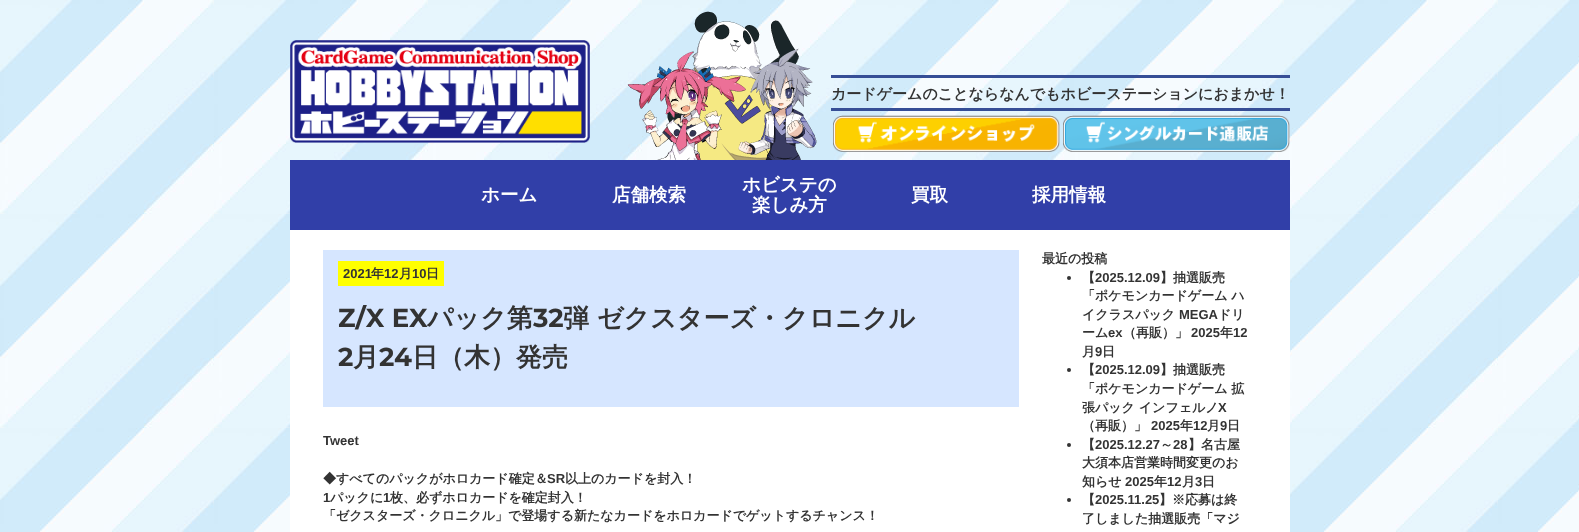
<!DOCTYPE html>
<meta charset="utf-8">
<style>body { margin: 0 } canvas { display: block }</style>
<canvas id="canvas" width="1579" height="532"></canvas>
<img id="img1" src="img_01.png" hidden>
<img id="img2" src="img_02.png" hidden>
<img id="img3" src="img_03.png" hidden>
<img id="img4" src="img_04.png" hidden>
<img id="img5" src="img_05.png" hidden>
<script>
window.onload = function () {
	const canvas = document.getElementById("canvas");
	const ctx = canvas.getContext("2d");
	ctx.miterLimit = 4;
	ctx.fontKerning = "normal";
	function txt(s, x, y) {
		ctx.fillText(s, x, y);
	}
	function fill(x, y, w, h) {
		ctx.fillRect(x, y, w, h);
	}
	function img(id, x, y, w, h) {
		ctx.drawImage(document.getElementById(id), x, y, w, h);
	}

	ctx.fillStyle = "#FFFFFF";
	fill(0, 0, 1579, 532);
	img("img1", 0, 0, 1579, 532);
	img("img2", 290, 40, 300, 103);
	img("img3", 627, 11, 190, 149);
	ctx.fillStyle = "#364E96";
	fill(831, 75, 459, 3);
	fill(831, 108, 459, 3);
	img("img4", 833, 115, 227, 37);
	img("img5", 1063, 115, 227, 37);
	ctx.fillStyle = "#313FA8";
	fill(290, 160, 1000, 70);
	ctx.fillStyle = "#FFFFFF";
	fill(290, 230, 1000, 302);
	ctx.fillStyle = "#D6E6FF";
	fill(323, 250, 696, 157);
	ctx.fillStyle = "#FFFF00";
	fill(338, 261, 106, 25);
	ctx.fillStyle = "#333333";
	ctx.beginPath();
	ctx.arc(1069, 278, 2, 0, Math.PI * 2);
	ctx.fill();
	ctx.beginPath();
	ctx.arc(1069, 370, 2, 0, Math.PI * 2);
	ctx.fill();
	ctx.beginPath();
	ctx.arc(1069, 445, 2, 0, Math.PI * 2);
	ctx.fill();
	ctx.beginPath();
	ctx.arc(1069, 500, 2, 0, Math.PI * 2);
	ctx.fill();
	ctx.font = "bold 15px WenQuanYi Zen Hei";
	txt("カードゲームのことならなんでもホビーステーションにおまかせ！", 831, 99);
	ctx.font = "bold 18.5px WenQuanYi Zen Hei";
	ctx.fillStyle = "#FFFFFF";
	txt("ホーム", 481, 201);
	txt("店舗検索", 612, 201);
	txt("ホビステの", 742, 191);
	txt("楽しみ方", 752, 211);
	txt("買取", 911, 201);
	txt("採用情報", 1032, 201);
	ctx.font = "bold 13px Liberation Sans";
	ctx.fillStyle = "#333333";
	txt("2021", 343, 278);
	ctx.font = "bold 13px WenQuanYi Zen Hei";
	txt("年", 371, 278);
	ctx.font = "bold 13px Liberation Sans";
	txt("12", 384, 278);
	ctx.font = "bold 13px WenQuanYi Zen Hei";
	txt("月", 399, 278);
	ctx.font = "bold 13px Liberation Sans";
	txt("10", 412, 278);
	ctx.font = "bold 13px WenQuanYi Zen Hei";
	txt("日", 426, 278);
	ctx.font = "bold 26px Montserrat";
	txt("Z/X EX", 338, 327);
	ctx.font = "bold 26px WenQuanYi Zen Hei";
	txt("パック第", 427, 327);
	ctx.font = "bold 26px Montserrat";
	txt("32", 533, 327);
	ctx.font = "bold 26px WenQuanYi Zen Hei";
	txt("弾", 563, 327);
	txt("ゼクスターズ・クロニクル", 597, 327);
	ctx.font = "bold 26px Montserrat";
	txt("2", 338, 366);
	ctx.font = "bold 26px WenQuanYi Zen Hei";
	txt("月", 353, 366);
	ctx.font = "bold 26px Montserrat";
	txt("24", 379, 366);
	ctx.font = "bold 26px WenQuanYi Zen Hei";
	txt("日（木）発売", 412, 366);
	ctx.font = "bold 13px Liberation Sans";
	txt("Tweet", 323, 445);
	ctx.font = "bold 13px WenQuanYi Zen Hei";
	txt("◆すべてのパックがホロカード確定＆", 323, 483);
	ctx.font = "bold 13px Liberation Sans";
	txt("SR", 547, 483);
	ctx.font = "bold 13px WenQuanYi Zen Hei";
	txt("以上のカードを封入！", 565, 483);
	ctx.font = "bold 13px Liberation Sans";
	txt("1", 323, 502);
	ctx.font = "bold 13px WenQuanYi Zen Hei";
	txt("パックに", 330, 502);
	ctx.font = "bold 13px Liberation Sans";
	txt("1", 383, 502);
	ctx.font = "bold 13px WenQuanYi Zen Hei";
	txt("枚、必ずホロカードを確定封入！", 390, 502);
	txt("「ゼクスターズ・クロニクル」で登場する新たなカードをホロカードでゲットするチャンス！", 323, 520);
	txt("最近の投稿", 1042, 263);
	txt("【", 1082, 282);
	ctx.font = "bold 13px Liberation Sans";
	txt("2025.12.09", 1095, 282);
	ctx.font = "bold 13px WenQuanYi Zen Hei";
	txt("】抽選販売", 1160, 282);
	txt("「ポケモンカードゲーム ハ", 1082, 300);
	txt("イクラスパック", 1082, 319);
	ctx.font = "bold 13px Liberation Sans";
	txt("MEGA", 1179, 319);
	ctx.font = "bold 13px WenQuanYi Zen Hei";
	txt("ドリ", 1218, 319);
	txt("ーム", 1082, 337);
	ctx.font = "bold 13px Liberation Sans";
	txt("ex", 1108, 337);
	ctx.font = "bold 13px WenQuanYi Zen Hei";
	txt("（再販）」", 1123, 337);
	ctx.font = "bold 13px Liberation Sans";
	txt("2025", 1191, 337);
	ctx.font = "bold 13px WenQuanYi Zen Hei";
	txt("年", 1220, 337);
	ctx.font = "bold 13px Liberation Sans";
	txt("12", 1233, 337);
	ctx.font = "bold 13px WenQuanYi Zen Hei";
	txt("月", 1082, 356);
	ctx.font = "bold 13px Liberation Sans";
	txt("9", 1095, 356);
	ctx.font = "bold 13px WenQuanYi Zen Hei";
	txt("日", 1102, 356);
	txt("【", 1082, 374);
	ctx.font = "bold 13px Liberation Sans";
	txt("2025.12.09", 1095, 374);
	ctx.font = "bold 13px WenQuanYi Zen Hei";
	txt("】抽選販売", 1160, 374);
	txt("「ポケモンカードゲーム 拡", 1082, 393);
	txt("張パック インフェルノ", 1082, 412);
	ctx.font = "bold 13px Liberation Sans";
	txt("X", 1218, 412);
	ctx.font = "bold 13px WenQuanYi Zen Hei";
	txt("（再販）」", 1082, 430);
	ctx.font = "bold 13px Liberation Sans";
	txt("2025", 1151, 430);
	ctx.font = "bold 13px WenQuanYi Zen Hei";
	txt("年", 1180, 430);
	ctx.font = "bold 13px Liberation Sans";
	txt("12", 1193, 430);
	ctx.font = "bold 13px WenQuanYi Zen Hei";
	txt("月", 1207, 430);
	ctx.font = "bold 13px Liberation Sans";
	txt("9", 1220, 430);
	ctx.font = "bold 13px WenQuanYi Zen Hei";
	txt("日", 1227, 430);
	txt("【", 1082, 449);
	ctx.font = "bold 13px Liberation Sans";
	txt("2025.12.27", 1095, 449);
	ctx.font = "bold 13px WenQuanYi Zen Hei";
	txt("～", 1160, 449);
	ctx.font = "bold 13px Liberation Sans";
	txt("28", 1173, 449);
	ctx.font = "bold 13px WenQuanYi Zen Hei";
	txt("】名古屋", 1188, 449);
	txt("大須本店営業時間変更のお", 1082, 467);
	txt("知らせ", 1082, 486);
	ctx.font = "bold 13px Liberation Sans";
	txt("2025", 1125, 486);
	ctx.font = "bold 13px WenQuanYi Zen Hei";
	txt("年", 1154, 486);
	ctx.font = "bold 13px Liberation Sans";
	txt("12", 1167, 486);
	ctx.font = "bold 13px WenQuanYi Zen Hei";
	txt("月", 1182, 486);
	ctx.font = "bold 13px Liberation Sans";
	txt("3", 1195, 486);
	ctx.font = "bold 13px WenQuanYi Zen Hei";
	txt("日", 1202, 486);
	txt("【", 1082, 504);
	ctx.font = "bold 13px Liberation Sans";
	txt("2025.11.25", 1095, 504);
	ctx.font = "bold 13px WenQuanYi Zen Hei";
	txt("】※応募は終", 1159, 504);
	txt("了しました抽選販売「マジ", 1082, 523);
};
</script>
